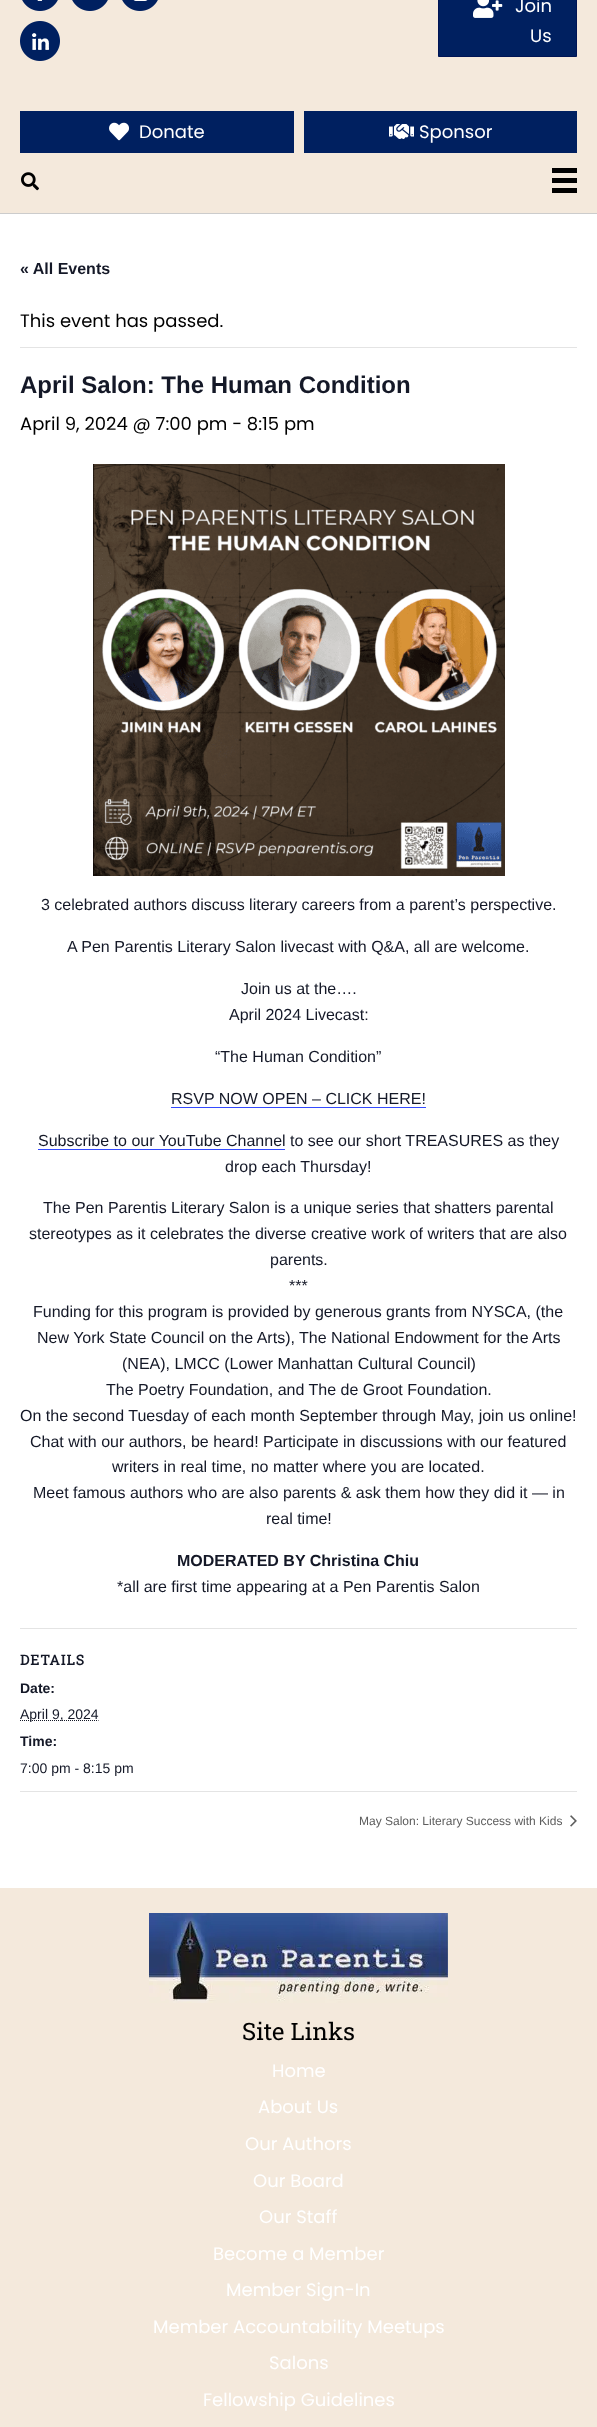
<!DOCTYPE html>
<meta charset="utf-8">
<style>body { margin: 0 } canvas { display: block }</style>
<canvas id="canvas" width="597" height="2427"></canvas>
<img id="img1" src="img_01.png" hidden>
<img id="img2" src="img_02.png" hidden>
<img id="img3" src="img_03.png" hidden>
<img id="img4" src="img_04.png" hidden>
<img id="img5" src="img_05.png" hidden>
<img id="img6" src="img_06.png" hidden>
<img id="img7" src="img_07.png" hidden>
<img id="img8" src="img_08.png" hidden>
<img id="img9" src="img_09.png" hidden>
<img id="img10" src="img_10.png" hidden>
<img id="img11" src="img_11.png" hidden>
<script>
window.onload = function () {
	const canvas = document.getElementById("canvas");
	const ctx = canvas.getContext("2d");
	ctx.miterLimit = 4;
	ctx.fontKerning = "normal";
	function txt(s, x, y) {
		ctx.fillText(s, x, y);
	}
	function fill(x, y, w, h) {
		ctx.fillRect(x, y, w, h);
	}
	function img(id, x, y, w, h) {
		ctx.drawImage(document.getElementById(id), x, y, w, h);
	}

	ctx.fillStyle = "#FFFFFF";
	fill(0, 0, 597, 2427);
	ctx.fillStyle = "#F4E9DC";
	fill(0, 0, 597, 213);
	ctx.fillStyle = "#CCCCCC";
	fill(0, 213, 597, 1);
	img("img1", 22, 0, 36, 11);
	img("img2", 72, 0, 36, 11);
	img("img3", 122, 0, 36, 11);
	img("img4", 20, 21, 40, 40);
	ctx.fillStyle = "#002060";
	ctx.beginPath();
	ctx.rect(438.5, -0.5, 138, 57);
	ctx.fill();
	ctx.strokeStyle = "#001454";
	ctx.stroke();
	img("img5", 473, 0, 30, 18);
	fill(20, 111, 274, 42);
	img("img6", 109, 122, 20, 19);
	fill(304, 111, 273, 42);
	img("img7", 389, 124, 25, 15);
	img("img8", 21, 172, 18, 19);
	ctx.fillStyle = "#000000";
	fill(552, 168, 25, 5);
	fill(552, 178, 25, 5);
	fill(552, 188, 25, 5);
	ctx.fillStyle = "#E4E4E4";
	fill(20, 347, 557, 1);
	img("img9", 93, 464, 412, 412);
	ctx.fillStyle = "#334AFF";
	fill(171, 1107, 255, 1);
	fill(38, 1149, 247, 1);
	ctx.fillStyle = "#E4E4E4";
	fill(20, 1628, 557, 1);
	ctx.beginPath();
	ctx.moveTo(20, 1720.5);
	ctx.lineTo(98.5, 1720.5);
	ctx.strokeStyle = "#141827";
	ctx.setLineDash([1, 1]);
	ctx.stroke();
	fill(20, 1791, 557, 1);
	img("img10", 570, 1815, 7, 12);
	ctx.fillStyle = "#F4E9DC";
	fill(0, 1888, 597, 539);
	img("img11", 149, 1913, 299, 90);
	ctx.font = "18px Poppins";
	ctx.fillStyle = "#FFFFFF";
	txt("Join", 515, 12);
	txt("Us", 530, 42);
	txt("Donate", 139, 138);
	txt("Sponsor", 419, 138);
	ctx.font = "bold 16px Liberation Sans";
	ctx.fillStyle = "#141827";
	txt("« All Events", 20, 274);
	ctx.font = "18px Poppins";
	ctx.fillStyle = "#000000";
	txt("This event has passed.", 20, 327);
	ctx.font = "bold 24px Liberation Sans";
	ctx.fillStyle = "#141827";
	txt("April Salon: The Human Condition", 20, 393);
	ctx.font = "18px Poppins";
	ctx.fillStyle = "#000000";
	txt("April 9, 2024 @ 7:00 pm - 8:15 pm", 20, 430);
	ctx.font = "16px Liberation Sans";
	ctx.fillStyle = "#141827";
	txt("3 celebrated authors discuss literary careers from a parent’s perspective.", 41, 910);
	txt("A Pen Parentis Literary Salon livecast with Q&A, all are welcome.", 67, 952);
	txt("Join us at the….", 241, 994);
	txt("April 2024 Livecast:", 229, 1020);
	txt("“The Human Condition”", 215, 1062);
	txt("RSVP NOW OPEN – CLICK HERE!", 171, 1104);
	txt("Subscribe to our YouTube Channel to see our short TREASURES as they", 38, 1146);
	txt("drop each Thursday!", 225, 1172);
	txt("The Pen Parentis Literary Salon is a unique series that shatters parental", 43, 1213);
	txt("stereotypes as it celebrates the diverse creative work of writers that are also", 29, 1239);
	txt("parents.", 270, 1265);
	txt("***", 289, 1291);
	txt("Funding for this program is provided by generous grants from NYSCA, (the", 33, 1317);
	txt("New York State Council on the Arts), The National Endowment for the Arts", 37, 1343);
	txt("(NEA), LMCC (Lower Manhattan Cultural Council)", 122, 1369);
	txt("The Poetry Foundation, and The de Groot Foundation.", 106, 1395);
	txt("On the second Tuesday of each month September through May, join us online!", 20, 1421);
	txt("Chat with our authors, be heard! Participate in discussions with our featured", 30, 1447);
	txt("writers in real time, no matter where you are located.", 112, 1472);
	txt("Meet famous authors who are also parents & ask them how they did it — in", 33, 1498);
	txt("real time!", 266, 1524);
	ctx.font = "bold 16px Liberation Sans";
	txt("MODERATED BY Christina Chiu", 177, 1566);
	ctx.font = "16px Liberation Sans";
	txt("*all are first time appearing at a Pen Parentis Salon", 117, 1592);
	ctx.letterSpacing = "1px";
	ctx.font = "bold 14px Roboto Slab";
	txt("DETAILS", 20, 1665);
	ctx.letterSpacing = "0px";
	ctx.font = "bold 14px Liberation Sans";
	txt("Date:", 20, 1693);
	ctx.font = "14px Liberation Sans";
	txt("April 9, 2024", 20, 1719);
	ctx.font = "bold 14px Liberation Sans";
	txt("Time:", 20, 1746);
	ctx.font = "14px Liberation Sans";
	txt("7:00 pm - 8:15 pm", 20, 1773);
	ctx.font = "12px Liberation Sans";
	ctx.fillStyle = "#5D5D5D";
	txt("May Salon: Literary Success with Kids", 359, 1825);
	ctx.font = "24px Roboto Slab";
	ctx.fillStyle = "#000000";
	txt("Site Links", 242, 2040);
	ctx.font = "18px Poppins";
	ctx.fillStyle = "#FFFFFF";
	txt("Home", 272, 2077);
	txt("About Us", 258, 2113);
	txt("Our Authors", 245, 2150);
	txt("Our Board", 253, 2187);
	txt("Our Staff", 259, 2223);
	txt("Become a Member", 213, 2260);
	txt("Member Sign-In", 226, 2296);
	txt("Member Accountability Meetups", 153, 2333);
	txt("Salons", 269, 2369);
	txt("Fellowship Guidelines", 203, 2406);
};
</script>
